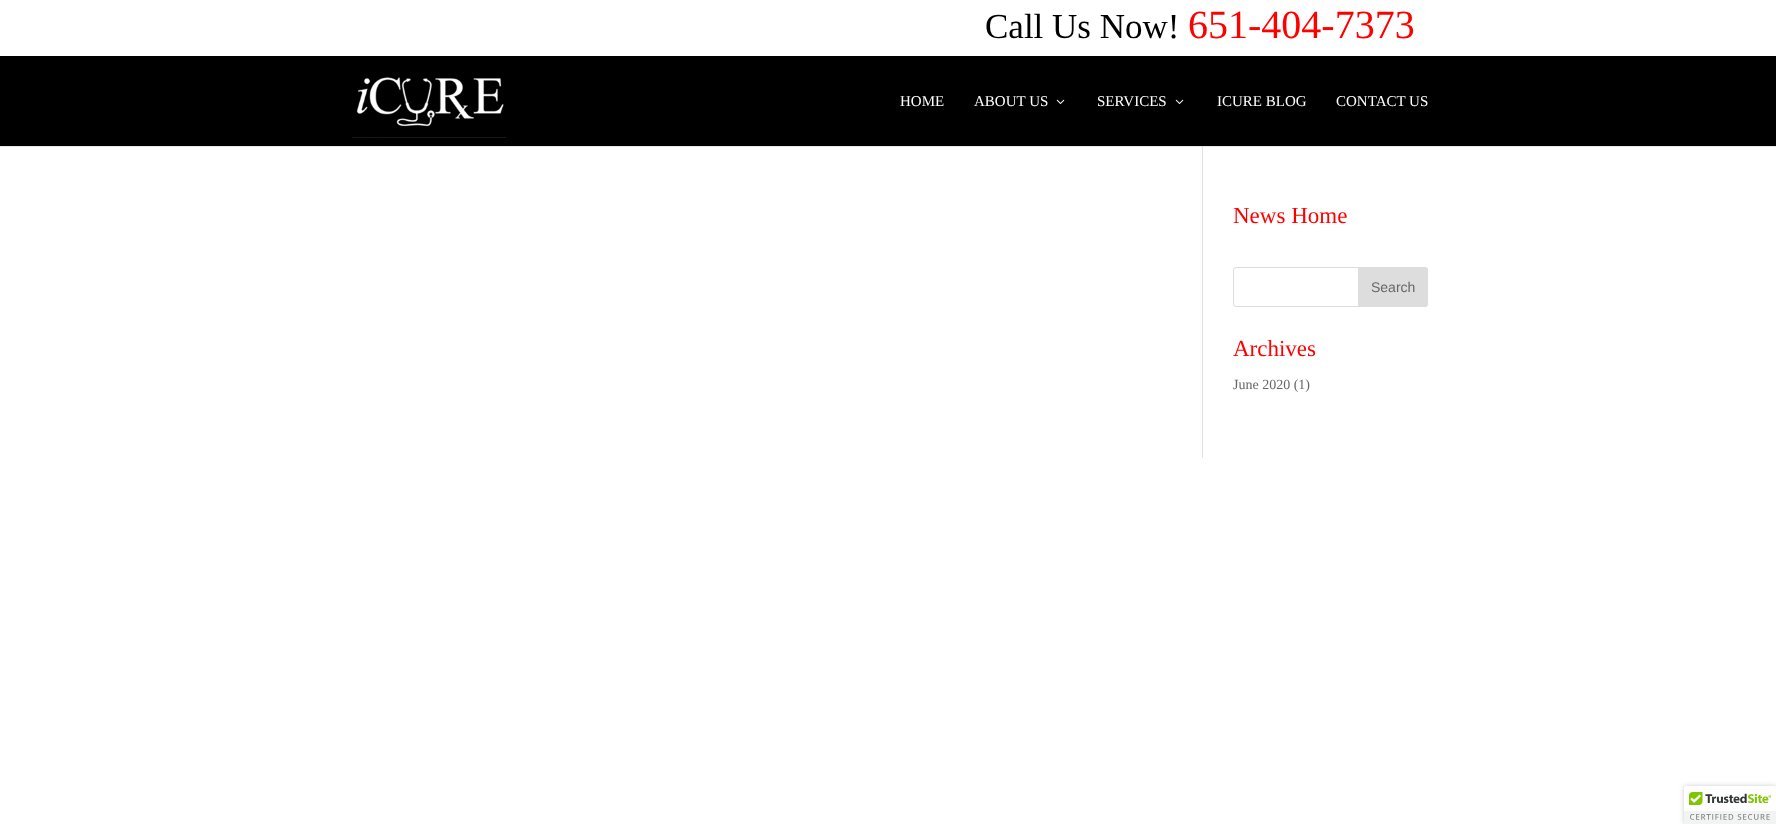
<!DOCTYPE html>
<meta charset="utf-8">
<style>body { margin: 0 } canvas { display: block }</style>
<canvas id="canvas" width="1776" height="824"></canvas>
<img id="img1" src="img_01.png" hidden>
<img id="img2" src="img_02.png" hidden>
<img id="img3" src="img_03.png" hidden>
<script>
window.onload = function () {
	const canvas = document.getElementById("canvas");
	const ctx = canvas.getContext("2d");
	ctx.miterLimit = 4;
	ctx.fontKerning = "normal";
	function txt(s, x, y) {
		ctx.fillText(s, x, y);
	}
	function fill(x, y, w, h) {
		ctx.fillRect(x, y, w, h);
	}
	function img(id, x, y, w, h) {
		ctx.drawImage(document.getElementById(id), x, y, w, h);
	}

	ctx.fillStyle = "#FFFFFF";
	fill(0, 0, 1776, 824);
	ctx.fillStyle = "#E6E6E6";
	fill(0, 146, 1776, 1);
	ctx.fillStyle = "#000000";
	fill(0, 56, 1776, 90);
	img("img1", 352, 77, 154, 61);
	img("img2", 1056, 99, 9, 5);
	img("img2", 1175, 99, 9, 5);
	ctx.fillStyle = "#E2E2E2";
	fill(1202, 146, 1, 312);
	ctx.fillStyle = "#CBCBCB";
	fill(1202, 146, 1, 1);
	ctx.beginPath();
	ctx.roundRect(1233.5, 267.5, 194, 39, 2.5);
	ctx.strokeStyle = "#DDDDDD";
	ctx.stroke();
	ctx.fillStyle = "#DDDDDD";
	ctx.beginPath();
	ctx.roundRect(1358.5, 267.5, 69, 39, [0, 2.5, 2.5, 0]);
	ctx.fill();
	ctx.stroke();
	ctx.fillStyle = "rgba(0, 0, 0, 0.2)";
	ctx.filter = "blur(2.5px)";
	ctx.beginPath();
	ctx.roundRect(1684, 786, 92, 38, 2);
	ctx.fill();
	ctx.filter = "none";
	ctx.fillStyle = "#FFFFFF";
	ctx.beginPath();
	ctx.roundRect(1684, 786, 92, 38, [2, 0, 0, 0]);
	ctx.fill();
	img("img3", 1684, 786, 92, 38);
	ctx.font = "35px Liberation Serif";
	ctx.fillStyle = "#000000";
	txt("Call Us Now!", 985, 38);
	ctx.font = "40px Liberation Serif";
	ctx.fillStyle = "#FF0000";
	txt("651-404-7373", 1188, 38);
	ctx.font = "15px Liberation Serif";
	ctx.fillStyle = "#FFFFFF";
	txt("HOME", 900, 106);
	txt("ABOUT US", 974, 106);
	txt("SERVICES", 1097, 106);
	txt("ICURE BLOG", 1217, 106);
	txt("CONTACT US", 1336, 106);
	ctx.font = "23px Liberation Serif";
	ctx.fillStyle = "#FF0000";
	txt("News Home", 1233, 223);
	ctx.font = "14px Liberation Sans";
	ctx.fillStyle = "#666666";
	txt("Search", 1371, 292);
	ctx.font = "23px Liberation Serif";
	ctx.fillStyle = "#FF0000";
	txt("Archives", 1233, 356);
	ctx.font = "14px Liberation Serif";
	ctx.fillStyle = "#666666";
	txt("June 2020 (1)", 1233, 389);
};
</script>
